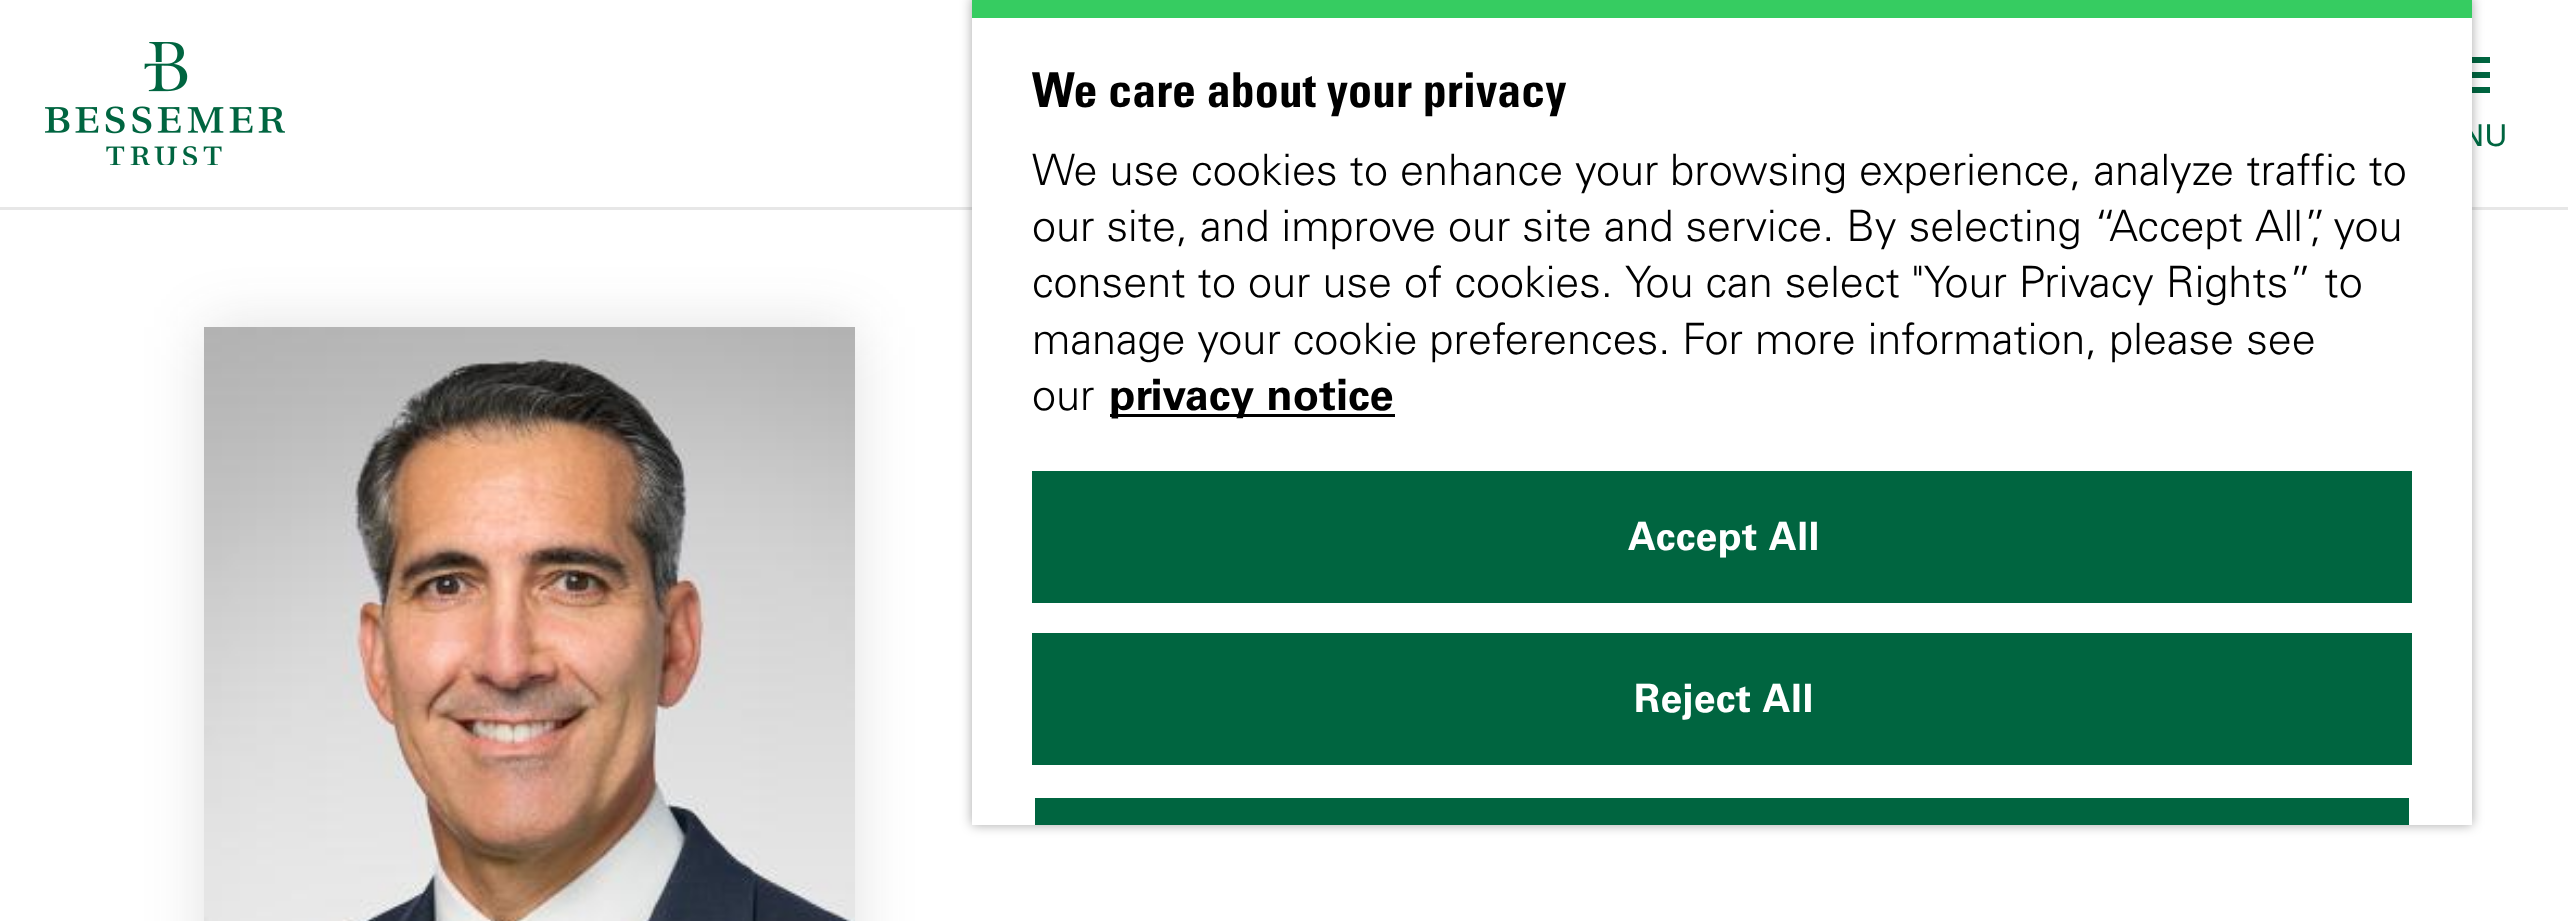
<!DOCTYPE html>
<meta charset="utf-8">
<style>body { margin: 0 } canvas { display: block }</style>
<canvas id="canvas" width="2568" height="921"></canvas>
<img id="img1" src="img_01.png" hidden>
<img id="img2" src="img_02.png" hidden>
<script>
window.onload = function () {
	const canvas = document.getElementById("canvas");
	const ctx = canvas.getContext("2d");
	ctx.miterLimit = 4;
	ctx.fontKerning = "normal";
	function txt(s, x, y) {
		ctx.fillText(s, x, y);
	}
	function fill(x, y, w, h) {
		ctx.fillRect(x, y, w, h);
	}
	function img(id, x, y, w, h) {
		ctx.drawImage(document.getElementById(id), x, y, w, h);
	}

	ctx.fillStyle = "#FFFFFF";
	fill(0, 0, 2568, 921);
	ctx.fillStyle = "#E7E7E7";
	fill(0, 207, 2568, 3);
	ctx.fillStyle = "#006540";
	ctx.beginPath();
	ctx.moveTo(2436, 93);
	ctx.lineTo(2490, 93);
	ctx.lineTo(2490, 87);
	ctx.lineTo(2436, 87);
	ctx.closePath();
	ctx.moveTo(2436, 78);
	ctx.lineTo(2490, 78);
	ctx.lineTo(2490, 72);
	ctx.lineTo(2436, 72);
	ctx.closePath();
	ctx.moveTo(2436, 57);
	ctx.lineTo(2436, 63);
	ctx.lineTo(2490, 63);
	ctx.lineTo(2490, 57);
	ctx.closePath();
	ctx.fill();
	ctx.fillStyle = "rgba(0, 0, 0, 0.35)";
	ctx.filter = "blur(6px)";
	ctx.beginPath();
	ctx.rect(972, -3, 1500, 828);
	ctx.fill();
	ctx.filter = "none";
	ctx.fillStyle = "#36CC61";
	fill(972, 0, 1500, 18);
	img("img1", 45, 42, 240, 123);
	ctx.fillStyle = "rgba(53, 53, 53, 0.15)";
	ctx.filter = "blur(30px)";
	ctx.beginPath();
	ctx.rect(204, 327, 651, 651);
	ctx.fill();
	ctx.filter = "none";
	img("img2", 204, 327, 651, 594);
	ctx.font = "30px Univers";
	ctx.fillStyle = "#006540";
	txt("NU", 2461, 146);
	ctx.fillStyle = "#FFFFFF";
	fill(972, 18, 1500, 807);
	ctx.fillStyle = "#006540";
	fill(1035, 798, 1374, 27);
	fill(1032, 633, 1380, 132);
	ctx.letterSpacing = "0.4px";
	ctx.font = "bold 39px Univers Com";
	ctx.fillStyle = "#FFFFFF";
	txt("Reject All", 1634, 712);
	ctx.fillStyle = "#006540";
	fill(1032, 471, 1380, 132);
	ctx.fillStyle = "#FFFFFF";
	txt("Accept All", 1628, 550);
	ctx.fillStyle = "#000000";
	fill(1110, 414, 285, 3);
	ctx.letterSpacing = "0px";
	ctx.font = "bold 43.2px Univers Com";
	txt("privacy notice", 1109, 410);
	ctx.font = "300 43.2px Univers Com";
	txt("our", 1032, 410);
	txt("manage your cookie preferences. For more information, please see", 1032, 354);
	txt("consent to our use of cookies. You can select \"Your Privacy Rights” to", 1032, 297);
	txt("our site, and improve our site and service. By selecting “Accept All”, you", 1032, 241);
	txt("We use cookies to enhance your browsing experience, analyze traffic to", 1032, 185);
	ctx.font = "bold 48px Univers";
	txt("We care about your privacy", 1032, 107);
};
</script>
